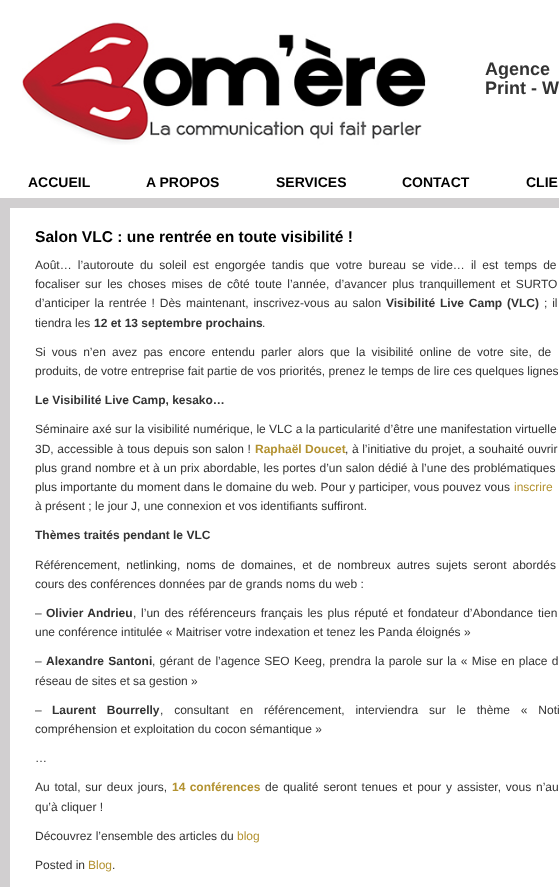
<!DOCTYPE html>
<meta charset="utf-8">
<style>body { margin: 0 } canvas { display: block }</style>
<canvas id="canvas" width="559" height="887"></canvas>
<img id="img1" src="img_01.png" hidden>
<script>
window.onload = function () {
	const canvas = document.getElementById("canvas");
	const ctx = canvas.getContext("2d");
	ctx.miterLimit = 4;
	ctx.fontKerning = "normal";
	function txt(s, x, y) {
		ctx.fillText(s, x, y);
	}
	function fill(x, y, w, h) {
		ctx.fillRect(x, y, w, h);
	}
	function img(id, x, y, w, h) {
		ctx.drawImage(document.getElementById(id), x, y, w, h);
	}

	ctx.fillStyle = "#FFFFFF";
	fill(0, 0, 559, 887);
	img("img1", 22, 22, 404, 123);
	ctx.fillStyle = "#D1CFD0";
	fill(0, 198, 559, 689);
	ctx.fillStyle = "#FFFFFF";
	fill(10, 208, 549, 679);
	ctx.font = "bold 18px Liberation Sans";
	ctx.fillStyle = "#333333";
	txt("Agence", 485, 75);
	txt("Print - W", 485, 94);
	ctx.font = "bold 14px Liberation Sans";
	ctx.fillStyle = "#000000";
	txt("ACCUEIL", 28, 187);
	txt("A PROPOS", 146, 187);
	txt("SERVICES", 276, 187);
	txt("CONTACT", 402, 187);
	txt("CLIE", 526, 187);
	ctx.font = "bold 15.6px Liberation Sans";
	txt("Salon VLC : une rentrée en toute visibilité !", 35, 242);
	ctx.wordSpacing = "2.75px";
	ctx.font = "12px Liberation Sans";
	ctx.fillStyle = "#333333";
	txt("Août… l’autoroute du soleil est engorgée tandis que votre bureau se vide… il est temps de", 35, 269);
	ctx.wordSpacing = "2.1px";
	txt("focaliser sur les choses mises de côté toute l’année, d’avancer plus tranquillement et SURTO", 35, 288);
	ctx.wordSpacing = "1.5px";
	txt("d’anticiper la rentrée ! Dès maintenant, inscrivez-vous au salon", 35, 307);
	ctx.font = "bold 12px Liberation Sans";
	txt("Visibilité Live Camp (VLC)", 386, 307);
	ctx.font = "12px Liberation Sans";
	txt("; il", 544, 307);
	ctx.wordSpacing = "0px";
	txt("tiendra les", 35, 327);
	ctx.font = "bold 12px Liberation Sans";
	txt("12 et 13 septembre prochains", 94, 327);
	ctx.font = "12px Liberation Sans";
	txt(".", 262, 327);
	ctx.wordSpacing = "2.75px";
	txt("Si vous n’en avez pas encore entendu parler alors que la visibilité online de votre site, de", 35, 356);
	ctx.wordSpacing = "0px";
	txt("produits, de votre entreprise fait partie de vos priorités, prenez le temps de lire ces quelques lignes", 35, 375);
	ctx.font = "bold 12px Liberation Sans";
	txt("Le Visibilité Live Camp, kesako…", 35, 404);
	ctx.font = "12px Liberation Sans";
	txt("Séminaire axé sur la visibilité numérique, le VLC a la particularité d’être une manifestation virtuelle", 35, 433);
	ctx.wordSpacing = "0.25px";
	txt("3D, accessible à tous depuis son salon !", 35, 453);
	ctx.wordSpacing = "0px";
	ctx.font = "bold 12px Liberation Sans";
	ctx.fillStyle = "#B39230";
	txt("Raphaël Doucet", 255, 453);
	ctx.wordSpacing = "0.25px";
	ctx.font = "12px Liberation Sans";
	ctx.fillStyle = "#333333";
	txt(", à l’initiative du projet, a souhaité ouvrir", 345, 453);
	ctx.wordSpacing = "0.3px";
	txt("plus grand nombre et à un prix abordable, les portes d’un salon dédié à l’une des problématiques", 35, 472);
	ctx.wordSpacing = "0px";
	txt("plus importante du moment dans le domaine du web. Pour y participer, vous pouvez vous", 35, 491);
	ctx.fillStyle = "#B39230";
	txt("inscrire", 514, 491);
	ctx.fillStyle = "#333333";
	txt("à présent ; le jour J, une connexion et vos identifiants suffiront.", 35, 510);
	ctx.font = "bold 12px Liberation Sans";
	txt("Thèmes traités pendant le VLC", 35, 539);
	ctx.wordSpacing = "2.6px";
	ctx.font = "12px Liberation Sans";
	txt("Référencement, netlinking, noms de domaines, et de nombreux autres sujets seront abordés", 35, 569);
	ctx.wordSpacing = "0px";
	txt("cours des conférences données par de grands noms du web :", 35, 588);
	txt("–", 35, 617);
	ctx.wordSpacing = "1px";
	ctx.font = "bold 12px Liberation Sans";
	txt("Olivier Andrieu", 46, 617);
	ctx.wordSpacing = "1.4px";
	ctx.font = "12px Liberation Sans";
	txt(", l’un des référenceurs français les plus réputé et fondateur d’Abondance tien", 133, 617);
	ctx.wordSpacing = "0px";
	txt("une conférence intitulée « Maitriser votre indexation et tenez les Panda éloignés »", 35, 636);
	txt("–", 35, 665);
	ctx.wordSpacing = "0.9px";
	ctx.font = "bold 12px Liberation Sans";
	txt("Alexandre Santoni", 46, 665);
	ctx.font = "12px Liberation Sans";
	txt(", gérant de l’agence SEO Keeg, prendra la parole sur la « Mise en place d", 152, 665);
	ctx.wordSpacing = "0px";
	txt("réseau de sites et sa gestion »", 35, 685);
	txt("–", 35, 714);
	ctx.wordSpacing = "7.5px";
	ctx.font = "bold 12px Liberation Sans";
	txt("Laurent Bourrelly", 52, 714);
	ctx.font = "12px Liberation Sans";
	txt(", consultant en référencement, interviendra sur le thème « Noti", 160, 714);
	ctx.wordSpacing = "0px";
	txt("compréhension et exploitation du cocon sémantique »", 35, 733);
	txt("…", 35, 762);
	ctx.wordSpacing = "1.5px";
	txt("Au total, sur deux jours,", 35, 791);
	ctx.wordSpacing = "1px";
	ctx.font = "bold 12px Liberation Sans";
	ctx.fillStyle = "#B39230";
	txt("14 conférences", 172, 791);
	ctx.wordSpacing = "1.5px";
	ctx.font = "12px Liberation Sans";
	ctx.fillStyle = "#333333";
	txt("de qualité seront tenues et pour y assister, vous n’au", 265, 791);
	ctx.wordSpacing = "0px";
	txt("qu’à cliquer !", 35, 811);
	txt("Découvrez l’ensemble des articles du", 35, 840);
	ctx.fillStyle = "#B39230";
	txt("blog", 237, 840);
	ctx.fillStyle = "#333333";
	txt("Posted in", 35, 869);
	ctx.fillStyle = "#B39230";
	txt("Blog", 88, 869);
	ctx.fillStyle = "#333333";
	txt(".", 112, 869);
};
</script>
